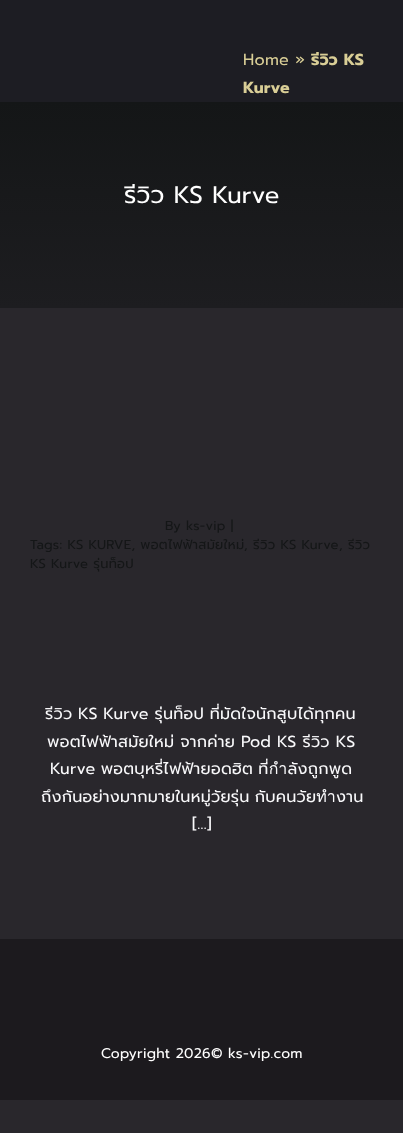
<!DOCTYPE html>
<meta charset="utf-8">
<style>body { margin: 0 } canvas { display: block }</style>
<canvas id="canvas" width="403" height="1133"></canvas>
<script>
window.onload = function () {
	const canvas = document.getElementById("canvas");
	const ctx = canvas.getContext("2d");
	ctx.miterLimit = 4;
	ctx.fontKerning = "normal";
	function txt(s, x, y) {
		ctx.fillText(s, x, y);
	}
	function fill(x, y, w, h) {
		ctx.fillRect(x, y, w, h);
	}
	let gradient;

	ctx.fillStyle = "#29272C";
	fill(0, 0, 403, 1133);
	ctx.fillStyle = "#1D1D23";
	fill(0, 0, 403, 102);
	gradient = ctx.createLinearGradient(202, 102, 202, 308);
	gradient.addColorStop(0, "#141617");
	gradient.addColorStop(1, "#1D1D20");
	ctx.fillStyle = gradient;
	fill(0, 102, 403, 206);
	ctx.fillStyle = "#1C1A1E";
	fill(0, 939, 403, 161);
	ctx.letterSpacing = "0.25px";
	ctx.font = "16px Prompt";
	ctx.fillStyle = "#D9CE96";
	txt("Home »", 243, 65);
	ctx.font = "bold 16px Prompt";
	txt("รีวิว KS", 311, 65);
	txt("Kurve", 243, 93);
	ctx.font = "24px Prompt";
	ctx.fillStyle = "#FFFFFF";
	txt("รีวิว KS Kurve", 124, 203);
	ctx.font = "13px Prompt";
	ctx.fillStyle = "#141617";
	txt("By ks-vip |", 165, 530);
	txt("Tags: KS KURVE, พอตไฟฟ้าสมัยใหม่", 30, 549);
	txt(", รีวิว", 339, 549);
	txt(",", 244, 549);
	txt("รีวิว KS Kurve", 253, 549);
	txt("KS Kurve รุ่นท็อป", 30, 568);
	ctx.wordSpacing = "-0.5px";
	ctx.font = "16px Prompt";
	ctx.fillStyle = "#F9F9FB";
	txt("รีวิว KS Kurve รุ่นท็อป ที่มัดใจนักสูบได้ทุกคน", 45, 719);
	ctx.wordSpacing = "-0.25px";
	txt("พอตไฟฟ้าสมัยใหม่ จากค่าย Pod KS รีวิว KS", 47, 747);
	ctx.wordSpacing = "-1px";
	txt("Kurve พอตบุหรี่ไฟฟ้ายอดฮิต ที่กำลังถูกพูด", 50, 774);
	txt("ถึงกันอย่างมากมายในหมู่วัยรุ่น กับคนวัยทำงาน", 41, 802);
	ctx.wordSpacing = "0px";
	txt("[…]", 192, 829);
	ctx.font = "14px Prompt";
	ctx.fillStyle = "#FFFFFF";
	txt("Copyright 2026© ks-vip.com", 101, 1058);
};
</script>
